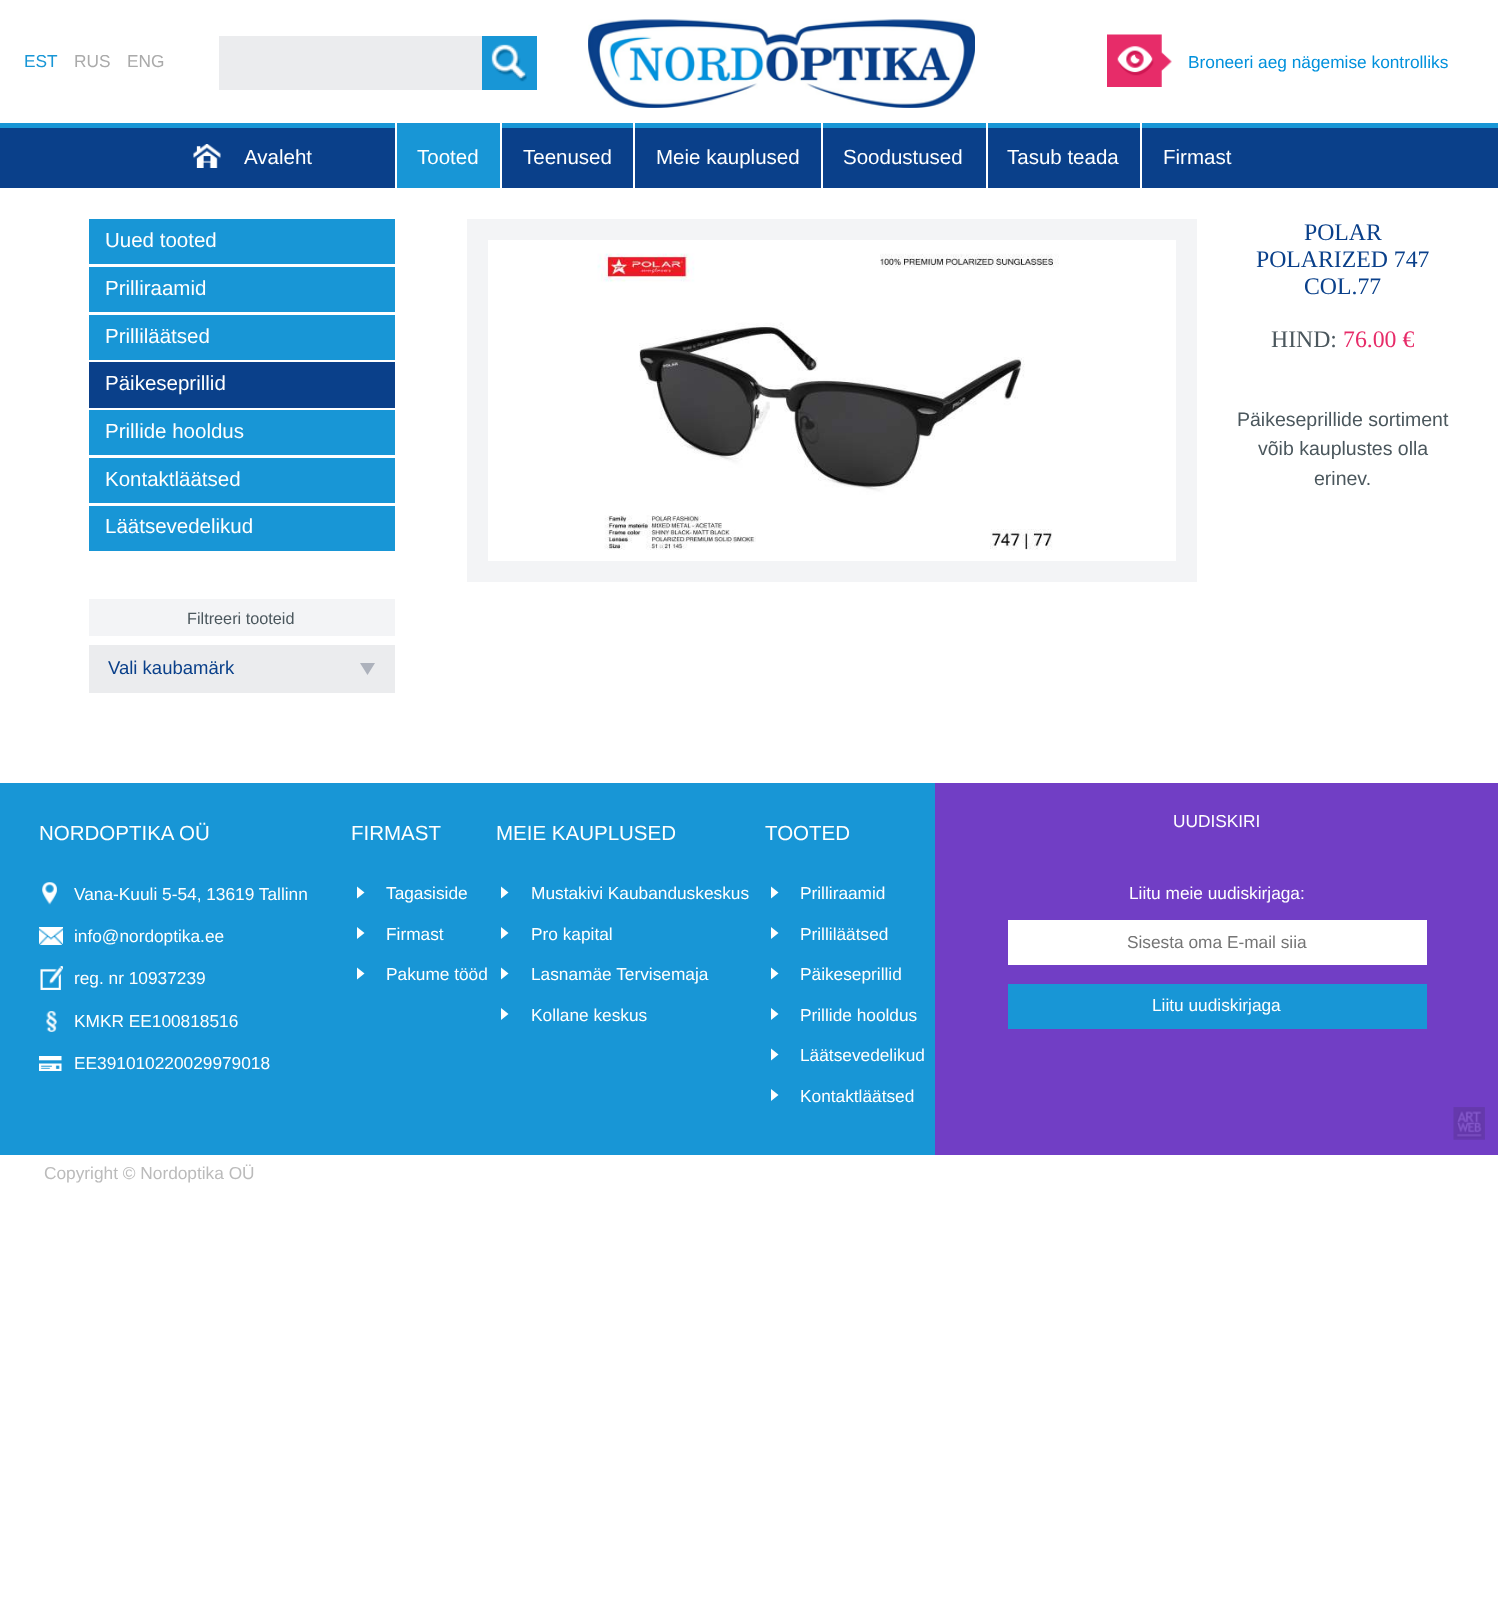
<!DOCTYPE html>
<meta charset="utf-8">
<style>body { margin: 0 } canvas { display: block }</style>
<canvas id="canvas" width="1498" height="1601"></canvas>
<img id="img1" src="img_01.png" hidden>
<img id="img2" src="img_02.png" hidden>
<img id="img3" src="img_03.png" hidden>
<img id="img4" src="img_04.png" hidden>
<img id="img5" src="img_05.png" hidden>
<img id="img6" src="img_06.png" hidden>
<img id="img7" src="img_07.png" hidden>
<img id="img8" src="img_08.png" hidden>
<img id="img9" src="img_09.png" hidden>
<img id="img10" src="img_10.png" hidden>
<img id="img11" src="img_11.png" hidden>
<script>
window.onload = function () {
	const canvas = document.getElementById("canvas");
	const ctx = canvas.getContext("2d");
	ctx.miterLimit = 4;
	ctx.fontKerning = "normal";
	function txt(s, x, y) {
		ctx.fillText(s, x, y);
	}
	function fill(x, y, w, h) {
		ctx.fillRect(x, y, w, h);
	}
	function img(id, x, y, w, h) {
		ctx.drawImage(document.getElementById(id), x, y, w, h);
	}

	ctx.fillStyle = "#FFFFFF";
	fill(0, 0, 1498, 1601);
	ctx.fillStyle = "#EBECEE";
	fill(219, 36, 263, 54);
	ctx.fillStyle = "#1896D6";
	fill(482, 36, 55, 54);
	img("img1", 491, 44, 36, 38);
	img("img2", 588, 19, 387, 89);
	img("img3", 1107, 34, 65, 53);
	ctx.fillStyle = "#0A408A";
	fill(0, 128, 1498, 60);
	ctx.fillStyle = "#1896D6";
	fill(0, 123, 1498, 5);
	img("img4", 193, 144, 28, 24);
	fill(397, 128, 103, 60);
	ctx.fillStyle = "#FFFFFF";
	fill(395, 123, 2, 65);
	fill(500, 123, 2, 65);
	fill(633, 123, 2, 65);
	fill(821, 123, 2, 65);
	fill(986, 123, 2, 65);
	fill(1140, 123, 2, 65);
	ctx.fillStyle = "#1896D6";
	fill(89, 219, 306, 45);
	fill(89, 267, 306, 45);
	fill(89, 315, 306, 45);
	ctx.fillStyle = "#0A408A";
	fill(89, 362, 306, 46);
	ctx.fillStyle = "#1896D6";
	fill(89, 410, 306, 45);
	fill(89, 458, 306, 45);
	fill(89, 506, 306, 45);
	ctx.fillStyle = "#F3F4F6";
	fill(89, 599, 306, 37);
	ctx.fillStyle = "#EBECEE";
	fill(89, 645, 306, 48);
	ctx.fillStyle = "#ADB2BC";
	ctx.beginPath();
	ctx.moveTo(360, 663);
	ctx.lineTo(375, 663);
	ctx.lineTo(367.5, 675);
	ctx.closePath();
	ctx.fill();
	ctx.strokeStyle = "#F3F4F6";
	ctx.lineWidth = 21;
	ctx.strokeRect(477.5, 229.5, 709, 342);
	img("img5", 597, 253, 462, 297);
	ctx.fillStyle = "#1896D6";
	fill(0, 783, 935, 372);
	img("img6", 42, 882, 15, 23);
	img("img7", 39, 927, 24, 18);
	img("img8", 40, 966, 23, 24);
	img("img9", 46, 1011, 11, 21);
	img("img10", 39, 1056, 23, 15);
	ctx.fillStyle = "#FFFFFF";
	ctx.beginPath();
	ctx.moveTo(357, 898.5);
	ctx.lineTo(357, 886.5);
	ctx.lineTo(364.5, 892.5);
	ctx.closePath();
	ctx.fill();
	ctx.beginPath();
	ctx.moveTo(357, 939);
	ctx.lineTo(357, 927);
	ctx.lineTo(364.5, 933);
	ctx.closePath();
	ctx.fill();
	ctx.beginPath();
	ctx.moveTo(357, 979.5);
	ctx.lineTo(357, 967.5);
	ctx.lineTo(364.5, 973.5);
	ctx.closePath();
	ctx.fill();
	ctx.beginPath();
	ctx.moveTo(501, 898.5);
	ctx.lineTo(501, 886.5);
	ctx.lineTo(508.5, 892.5);
	ctx.closePath();
	ctx.fill();
	ctx.beginPath();
	ctx.moveTo(501, 939);
	ctx.lineTo(501, 927);
	ctx.lineTo(508.5, 933);
	ctx.closePath();
	ctx.fill();
	ctx.beginPath();
	ctx.moveTo(501, 979.5);
	ctx.lineTo(501, 967.5);
	ctx.lineTo(508.5, 973.5);
	ctx.closePath();
	ctx.fill();
	ctx.beginPath();
	ctx.moveTo(501, 1020);
	ctx.lineTo(501, 1008);
	ctx.lineTo(508.5, 1014);
	ctx.closePath();
	ctx.fill();
	ctx.beginPath();
	ctx.moveTo(771, 898.5);
	ctx.lineTo(771, 886.5);
	ctx.lineTo(778.5, 892.5);
	ctx.closePath();
	ctx.fill();
	ctx.beginPath();
	ctx.moveTo(771, 939);
	ctx.lineTo(771, 927);
	ctx.lineTo(778.5, 933);
	ctx.closePath();
	ctx.fill();
	ctx.beginPath();
	ctx.moveTo(771, 979.5);
	ctx.lineTo(771, 967.5);
	ctx.lineTo(778.5, 973.5);
	ctx.closePath();
	ctx.fill();
	ctx.beginPath();
	ctx.moveTo(771, 1020);
	ctx.lineTo(771, 1008);
	ctx.lineTo(778.5, 1014);
	ctx.closePath();
	ctx.fill();
	ctx.beginPath();
	ctx.moveTo(771, 1060.5);
	ctx.lineTo(771, 1048.5);
	ctx.lineTo(778.5, 1054.5);
	ctx.closePath();
	ctx.fill();
	ctx.beginPath();
	ctx.moveTo(771, 1101);
	ctx.lineTo(771, 1089);
	ctx.lineTo(778.5, 1095);
	ctx.closePath();
	ctx.fill();
	ctx.fillStyle = "#713EC5";
	fill(935, 783, 563, 372);
	ctx.fillStyle = "#FFFFFF";
	fill(1008, 920, 419, 45);
	ctx.fillStyle = "#1896D6";
	fill(1008, 984, 419, 45);
	img("img11", 1453, 1107, 32, 33);
	ctx.font = "17.3px Liberation Sans";
	txt("EST", 24, 67);
	ctx.fillStyle = "#AAAAAA";
	txt("RUS", 74, 67);
	txt("ENG", 127, 67);
	ctx.fillStyle = "#0191DC";
	txt("Broneeri aeg nägemise kontrolliks", 1188, 68);
	ctx.font = "20.5px Liberation Sans";
	ctx.fillStyle = "#FFFFFF";
	txt("Avaleht", 244, 164);
	txt("Tooted", 417, 164);
	txt("Teenused", 523, 164);
	txt("Meie kauplused", 656, 164);
	txt("Soodustused", 843, 164);
	txt("Tasub teada", 1007, 164);
	txt("Firmast", 1163, 164);
	txt("Uued tooted", 105, 247);
	txt("Prilliraamid", 105, 295);
	txt("Prilliläätsed", 105, 343);
	txt("Päikeseprillid", 105, 390);
	txt("Prillide hooldus", 105, 438);
	txt("Kontaktläätsed", 105, 486);
	txt("Läätsevedelikud", 105, 533);
	ctx.font = "16.25px Liberation Sans";
	ctx.fillStyle = "#4B575D";
	txt("Filtreeri tooteid", 187, 624);
	ctx.font = "18.5px Liberation Sans";
	ctx.fillStyle = "#0A408A";
	txt("Vali kaubamärk", 108, 674);
	ctx.font = "23.75px Liberation Serif";
	txt("POLAR", 1304, 240);
	txt("POLARIZED 747", 1256, 267);
	txt("COL.77", 1304, 294);
	ctx.fillStyle = "#4B575D";
	txt("HIND:", 1271, 347);
	ctx.fillStyle = "#E72C69";
	txt("76.00 €", 1343, 347);
	ctx.font = "19.5px Liberation Sans";
	ctx.fillStyle = "#4B575D";
	txt("Päikeseprillide sortiment", 1237, 426);
	txt("võib kauplustes olla", 1258, 455);
	txt("erinev.", 1314, 485);
	ctx.font = "20.5px Liberation Sans";
	ctx.fillStyle = "#FFFFFF";
	txt("NORDOPTIKA OÜ", 39, 840);
	ctx.font = "17.3px Liberation Sans";
	txt("Vana-Kuuli 5-54, 13619 Tallinn", 74, 900);
	txt("info@nordoptika.ee", 74, 942);
	txt("reg. nr 10937239", 74, 984);
	txt("KMKR EE100818516", 74, 1027);
	txt("EE391010220029979018", 74, 1069);
	ctx.font = "20.5px Liberation Sans";
	txt("FIRMAST", 351, 840);
	ctx.font = "17.3px Liberation Sans";
	txt("Tagasiside", 386, 899);
	txt("Firmast", 386, 940);
	txt("Pakume tööd", 386, 980);
	ctx.font = "20.5px Liberation Sans";
	txt("MEIE KAUPLUSED", 496, 840);
	ctx.font = "17.3px Liberation Sans";
	txt("Mustakivi Kaubanduskeskus", 531, 899);
	txt("Pro kapital", 531, 940);
	txt("Lasnamäe Tervisemaja", 531, 980);
	txt("Kollane keskus", 531, 1021);
	ctx.font = "20.5px Liberation Sans";
	txt("TOOTED", 765, 840);
	ctx.font = "17.3px Liberation Sans";
	txt("Prilliraamid", 800, 899);
	txt("Prilliläätsed", 800, 940);
	txt("Päikeseprillid", 800, 980);
	txt("Prillide hooldus", 800, 1021);
	txt("Läätsevedelikud", 800, 1061);
	txt("Kontaktläätsed", 800, 1102);
	txt("UUDISKIRI", 1173, 827);
	txt("Liitu meie uudiskirjaga:", 1129, 899);
	ctx.fillStyle = "#757575";
	txt("Sisesta oma E-mail siia", 1127, 948);
	ctx.fillStyle = "#FFFFFF";
	txt("Liitu uudiskirjaga", 1152, 1011);
	ctx.fillStyle = "#BBBBBB";
	txt("Copyright © Nordoptika OÜ", 44, 1179);
};
</script>
